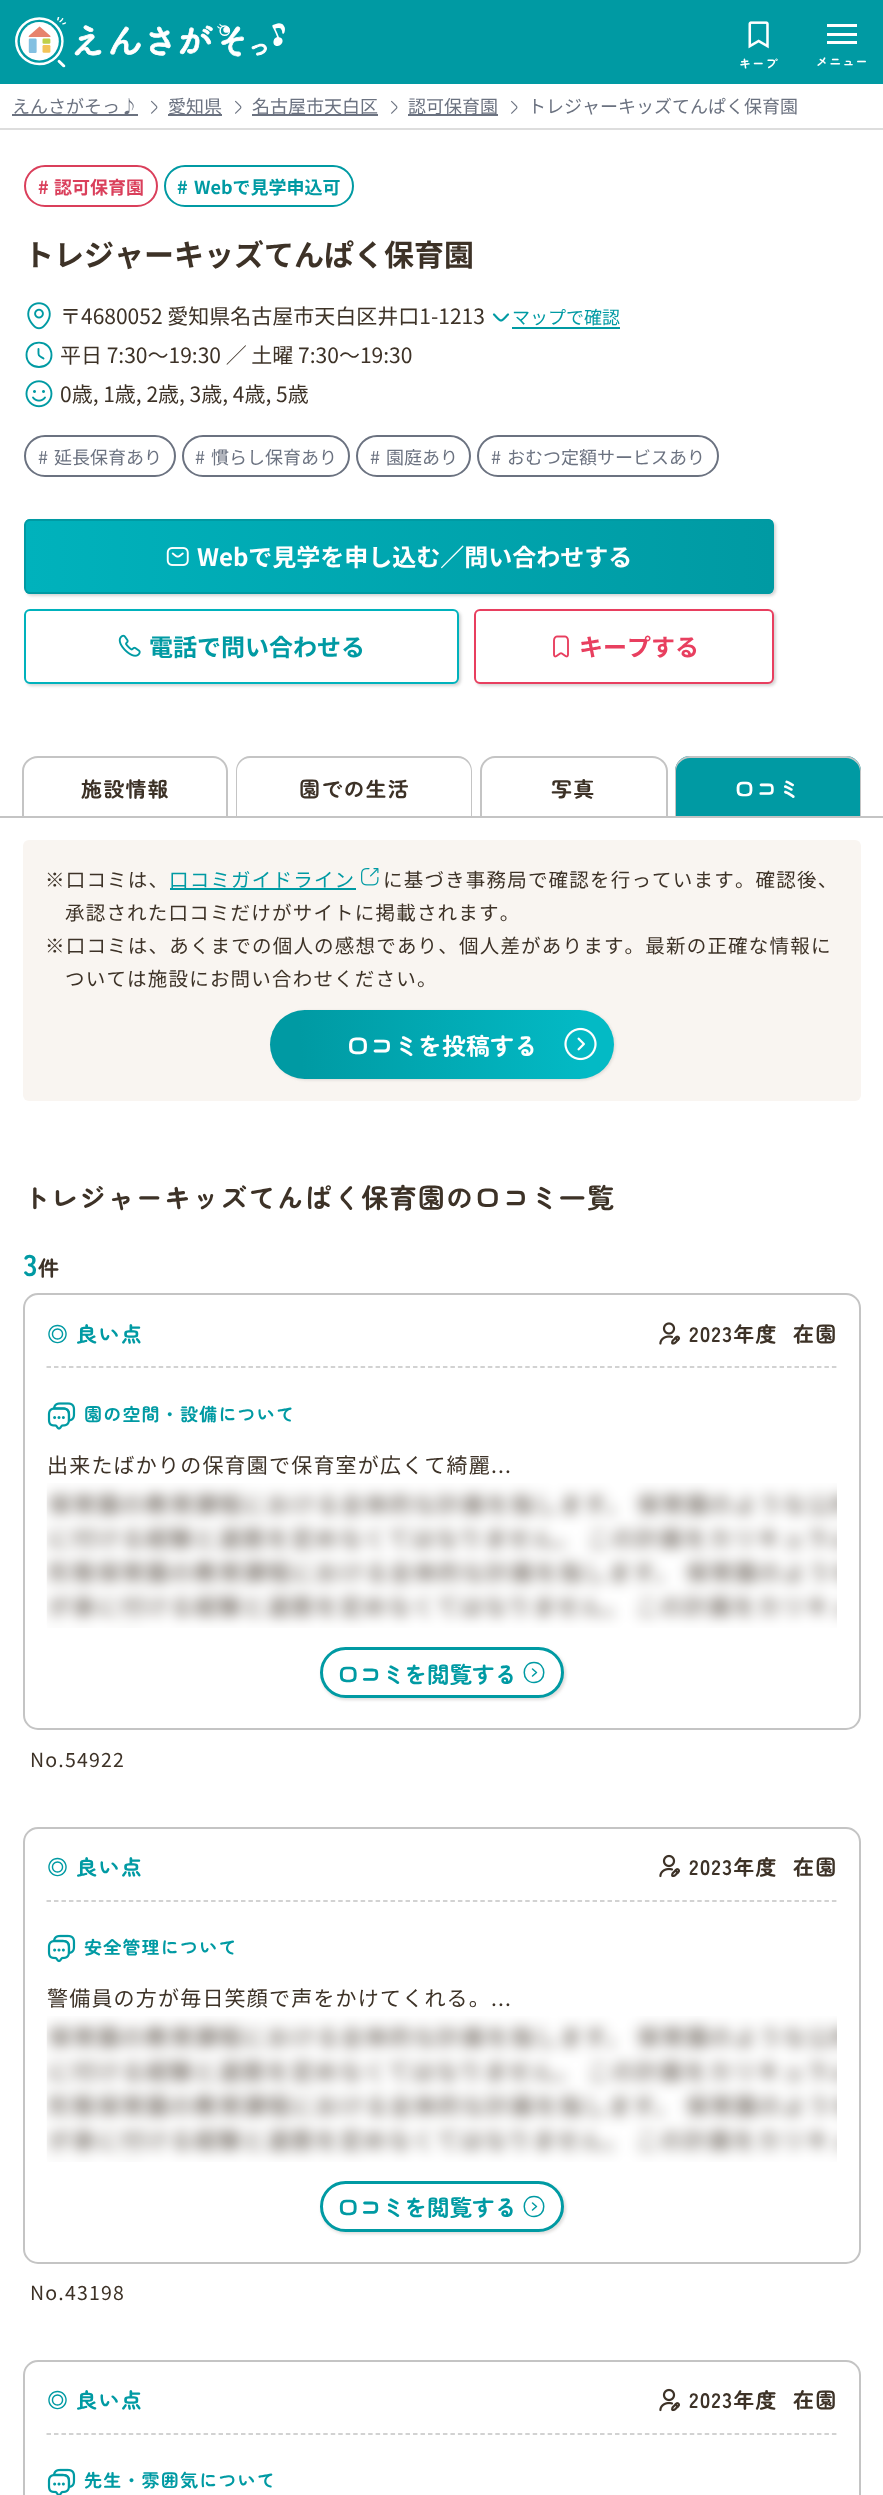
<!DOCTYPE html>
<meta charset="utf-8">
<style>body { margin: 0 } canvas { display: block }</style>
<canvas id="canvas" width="883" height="2495"></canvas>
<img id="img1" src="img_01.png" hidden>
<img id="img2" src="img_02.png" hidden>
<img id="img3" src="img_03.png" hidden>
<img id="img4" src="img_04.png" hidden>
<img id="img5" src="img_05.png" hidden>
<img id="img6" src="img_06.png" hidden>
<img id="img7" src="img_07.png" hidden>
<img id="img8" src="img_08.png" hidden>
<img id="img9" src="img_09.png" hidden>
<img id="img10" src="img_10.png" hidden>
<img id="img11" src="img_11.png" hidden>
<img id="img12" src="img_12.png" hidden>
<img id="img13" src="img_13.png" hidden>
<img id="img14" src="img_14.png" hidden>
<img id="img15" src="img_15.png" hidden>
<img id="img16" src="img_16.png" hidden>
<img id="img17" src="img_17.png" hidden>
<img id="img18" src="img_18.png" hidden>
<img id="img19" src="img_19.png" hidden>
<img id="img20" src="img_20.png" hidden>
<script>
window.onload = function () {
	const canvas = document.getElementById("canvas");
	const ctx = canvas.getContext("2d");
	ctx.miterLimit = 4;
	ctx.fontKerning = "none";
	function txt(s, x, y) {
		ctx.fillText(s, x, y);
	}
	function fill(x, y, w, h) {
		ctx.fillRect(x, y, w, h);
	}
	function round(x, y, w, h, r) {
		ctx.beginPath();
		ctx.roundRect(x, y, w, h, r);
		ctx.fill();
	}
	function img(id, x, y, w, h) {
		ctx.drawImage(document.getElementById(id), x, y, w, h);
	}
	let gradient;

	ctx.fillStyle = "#FFFFFF";
	fill(0, 0, 883, 2495);
	ctx.fillStyle = "#009AA3";
	fill(0, 0, 883, 84);
	img("img1", 15, 17, 270, 51);
	img("img2", 748, 21, 21, 28);
	ctx.fillStyle = "#FFFFFF";
	fill(827, 24, 30, 3);
	fill(827, 33, 30, 3);
	fill(827, 41, 30, 3);
	ctx.fillStyle = "#DDDDDD";
	fill(0, 128, 883, 2);
	ctx.fillStyle = "#6B7280";
	fill(12, 114, 126, 2);
	img("img3", 151, 100, 7, 14);
	fill(168, 114, 54, 2);
	img("img4", 235, 100, 7, 14);
	fill(252, 114, 126, 2);
	img("img5", 391, 100, 7, 14);
	fill(408, 114, 90, 2);
	img("img6", 511, 100, 7, 14);
	ctx.beginPath();
	ctx.roundRect(25, 166, 132, 40, 20);
	ctx.strokeStyle = "#DA3F5B";
	ctx.lineWidth = 2;
	ctx.stroke();
	ctx.beginPath();
	ctx.roundRect(165, 166, 188, 40, 20);
	ctx.strokeStyle = "#009AA3";
	ctx.stroke();
	img("img7", 27, 302, 24, 28);
	ctx.beginPath();
	ctx.moveTo(508, 314.5);
	ctx.bezierCurveTo(500, 322.5, 502, 322.5, 494, 314.5);
	ctx.lineWidth = 2.2;
	ctx.lineCap = "round";
	ctx.lineJoin = "round";
	ctx.stroke();
	ctx.fillStyle = "#009AA3";
	fill(512, 327, 108, 2);
	ctx.beginPath();
	ctx.moveTo(51.5, 355);
	ctx.bezierCurveTo(51.5, 371, 26.5, 371, 26.5, 355);
	ctx.bezierCurveTo(26.5, 338.5, 51.5, 338.5, 51.5, 355);
	ctx.closePath();
	ctx.moveTo(43.5, 358.5);
	ctx.bezierCurveTo(37.5, 355, 38.5, 356, 38.5, 349);
	ctx.lineWidth = 1.9;
	ctx.stroke();
	img("img8", 25, 380, 28, 28);
	ctx.beginPath();
	ctx.roundRect(25, 436, 150, 40, 20);
	ctx.strokeStyle = "#6B7280";
	ctx.lineWidth = 2;
	ctx.lineJoin = "miter";
	ctx.stroke();
	ctx.beginPath();
	ctx.roundRect(183, 436, 166, 40, 20);
	ctx.stroke();
	ctx.beginPath();
	ctx.roundRect(357, 436, 113, 40, 20);
	ctx.stroke();
	ctx.beginPath();
	ctx.roundRect(478, 436, 240, 40, 20);
	ctx.stroke();
	ctx.fillStyle = "rgba(171, 171, 171, 0.5)";
	ctx.filter = "blur(1.5px)";
	ctx.beginPath();
	ctx.roundRect(26, 521, 750, 75, 6);
	ctx.fill();
	ctx.filter = "none";
	ctx.save();
	ctx.beginPath();
	ctx.roundRect(24, 519, 750, 75, 6);
	ctx.clip();
	gradient = ctx.createLinearGradient(26, 557, 773, 557);
	gradient.addColorStop(0, "#00B2BC");
	gradient.addColorStop(1, "#009AA3");
	ctx.fillStyle = gradient;
	fill(26, 519, 747, 75);
	ctx.restore();
	ctx.beginPath();
	ctx.roundRect(25, 520, 748, 73, 5);
	ctx.strokeStyle = "#009AA3";
	ctx.stroke();
	img("img9", 166, 547, 23, 19);
	ctx.filter = "blur(1.5px)";
	ctx.beginPath();
	ctx.roundRect(26, 611, 435, 75, 6);
	ctx.fill();
	ctx.filter = "none";
	ctx.fillStyle = "#FFFFFF";
	ctx.beginPath();
	ctx.roundRect(25, 610, 433, 73, 5);
	ctx.fill();
	ctx.strokeStyle = "#00B2BC";
	ctx.stroke();
	img("img10", 118, 634, 23, 23);
	ctx.fillStyle = "rgba(171, 171, 171, 0.5)";
	ctx.filter = "blur(1.5px)";
	ctx.beginPath();
	ctx.roundRect(476, 611, 300, 75, 6);
	ctx.fill();
	ctx.filter = "none";
	ctx.fillStyle = "#FFFFFF";
	ctx.beginPath();
	ctx.roundRect(475, 610, 298, 73, 5);
	ctx.fill();
	ctx.strokeStyle = "#E83F5F";
	ctx.stroke();
	img("img11", 553, 635, 16, 23);
	ctx.fillStyle = "#C4C4C4";
	ctx.beginPath();
	ctx.moveTo(38, 756);
	ctx.lineTo(213, 756);
	ctx.bezierCurveTo(221, 756, 228, 763, 228, 771);
	ctx.lineTo(228, 816);
	ctx.lineTo(22, 816);
	ctx.lineTo(22, 771);
	ctx.bezierCurveTo(22, 763, 29, 756, 38, 756);
	ctx.closePath();
	ctx.moveTo(38, 758);
	ctx.lineTo(213, 758);
	ctx.bezierCurveTo(220, 758, 226, 764, 226, 771);
	ctx.lineTo(226, 816);
	ctx.lineTo(24, 816);
	ctx.lineTo(24, 771);
	ctx.bezierCurveTo(24, 764, 30, 758, 38, 758);
	ctx.closePath();
	ctx.fill("evenodd");
	ctx.beginPath();
	ctx.moveTo(250, 756);
	ctx.lineTo(458, 756);
	ctx.bezierCurveTo(466, 756, 472, 763, 472, 771);
	ctx.lineTo(472, 816);
	ctx.lineTo(236, 816);
	ctx.lineTo(236, 771);
	ctx.bezierCurveTo(236, 763, 242, 756, 250, 756);
	ctx.closePath();
	ctx.moveTo(250, 758);
	ctx.lineTo(458, 758);
	ctx.bezierCurveTo(465, 758, 471, 764, 471, 771);
	ctx.lineTo(471, 816);
	ctx.lineTo(237, 816);
	ctx.lineTo(237, 771);
	ctx.bezierCurveTo(237, 764, 243, 758, 250, 758);
	ctx.closePath();
	ctx.fill("evenodd");
	ctx.beginPath();
	ctx.moveTo(495, 756);
	ctx.lineTo(652, 756);
	ctx.bezierCurveTo(661, 756, 668, 763, 668, 771);
	ctx.lineTo(668, 816);
	ctx.lineTo(480, 816);
	ctx.lineTo(480, 771);
	ctx.bezierCurveTo(480, 763, 487, 756, 495, 756);
	ctx.closePath();
	ctx.moveTo(495, 758);
	ctx.lineTo(652, 758);
	ctx.bezierCurveTo(660, 758, 666, 764, 666, 771);
	ctx.lineTo(666, 816);
	ctx.lineTo(482, 816);
	ctx.lineTo(482, 771);
	ctx.bezierCurveTo(482, 764, 488, 758, 495, 758);
	ctx.closePath();
	ctx.fill("evenodd");
	ctx.fillStyle = "#009AA3";
	ctx.beginPath();
	ctx.roundRect(675, 756, 186, 60, [15, 15, 0, 0]);
	ctx.fill();
	ctx.fillStyle = "#C4C4C4";
	ctx.beginPath();
	ctx.moveTo(690, 756);
	ctx.lineTo(846, 756);
	ctx.bezierCurveTo(854, 756, 861, 763, 861, 771);
	ctx.lineTo(861, 816);
	ctx.lineTo(675, 816);
	ctx.lineTo(675, 771);
	ctx.bezierCurveTo(675, 763, 682, 756, 690, 756);
	ctx.closePath();
	ctx.moveTo(690, 758);
	ctx.lineTo(846, 758);
	ctx.bezierCurveTo(853, 758, 860, 764, 860, 771);
	ctx.lineTo(860, 816);
	ctx.lineTo(676, 816);
	ctx.lineTo(676, 771);
	ctx.bezierCurveTo(676, 764, 683, 758, 690, 758);
	ctx.closePath();
	ctx.fill("evenodd");
	fill(0, 816, 883, 2);
	ctx.fillStyle = "#F9F5F1";
	round(23, 840, 838, 261, 6);
	ctx.fillStyle = "#009AA3";
	fill(170, 888, 186, 2);
	img("img12", 361, 868, 18, 18);
	ctx.fillStyle = "rgba(174, 171, 167, 0.4)";
	ctx.filter = "blur(1.5px)";
	ctx.beginPath();
	ctx.roundRect(272, 1011, 343, 69, 34.5);
	ctx.fill();
	ctx.filter = "none";
	gradient = ctx.createLinearGradient(615, 1035, 269, 1053);
	gradient.addColorStop(0.08, "#03BAC5");
	gradient.addColorStop(0.91, "#009AA3");
	ctx.fillStyle = gradient;
	round(270, 1010, 344, 69, 34.5);
	img("img13", 564, 1027, 33, 34);
	ctx.beginPath();
	ctx.roundRect(24, 1294, 836, 435, 14);
	ctx.strokeStyle = "#C4C4C4";
	ctx.stroke();
	ctx.beginPath();
	ctx.moveTo(46.5, 1367);
	ctx.lineTo(837, 1367);
	ctx.lineWidth = 1.5;
	ctx.lineCap = "butt";
	ctx.setLineDash([4.5, 2.98]);
	ctx.stroke();
	img("img14", 659, 1322, 22, 23);
	img("img15", 47, 1402, 29, 28);
	img("img16", 46, 1483, 791, 145);
	ctx.fillStyle = "rgba(174, 171, 167, 0.4)";
	ctx.filter = "blur(1.5px)";
	ctx.beginPath();
	ctx.roundRect(321, 1649, 245, 51, 25.5);
	ctx.fill();
	ctx.filter = "none";
	ctx.fillStyle = "#FFFFFF";
	ctx.beginPath();
	ctx.roundRect(321.5, 1648.5, 241, 48, 24);
	ctx.fill();
	ctx.strokeStyle = "#009AA3";
	ctx.lineWidth = 3;
	ctx.setLineDash([]);
	ctx.stroke();
	ctx.beginPath();
	ctx.moveTo(534, 1682.5);
	ctx.bezierCurveTo(547, 1682.5, 547, 1662.5, 534, 1662.5);
	ctx.bezierCurveTo(521, 1662.5, 521, 1682.5, 534, 1682.5);
	ctx.closePath();
	ctx.moveTo(532.5, 1676);
	ctx.lineTo(536.5, 1672.5);
	ctx.lineTo(532.5, 1669);
	ctx.lineWidth = 1.5;
	ctx.lineCap = "round";
	ctx.lineJoin = "round";
	ctx.stroke();
	ctx.beginPath();
	ctx.roundRect(24, 1828, 836, 435, 14);
	ctx.strokeStyle = "#C4C4C4";
	ctx.lineWidth = 2;
	ctx.lineJoin = "miter";
	ctx.stroke();
	ctx.beginPath();
	ctx.moveTo(46.5, 1901);
	ctx.lineTo(837, 1901);
	ctx.lineWidth = 1.5;
	ctx.lineCap = "butt";
	ctx.setLineDash([4.5, 2.98]);
	ctx.stroke();
	img("img17", 659, 1854, 21, 24);
	img("img18", 47, 1934, 29, 29);
	img("img19", 46, 2016, 791, 146);
	ctx.fillStyle = "rgba(174, 171, 167, 0.4)";
	ctx.filter = "blur(1.5px)";
	ctx.beginPath();
	ctx.roundRect(321, 2183, 245, 51, 25.5);
	ctx.fill();
	ctx.filter = "none";
	ctx.fillStyle = "#FFFFFF";
	ctx.beginPath();
	ctx.roundRect(321.5, 2182.5, 241, 48, 24);
	ctx.fill();
	ctx.strokeStyle = "#009AA3";
	ctx.lineWidth = 3;
	ctx.setLineDash([]);
	ctx.stroke();
	ctx.beginPath();
	ctx.moveTo(534, 2216.5);
	ctx.bezierCurveTo(547, 2216.5, 547, 2196.5, 534, 2196.5);
	ctx.bezierCurveTo(521, 2196.5, 521, 2216.5, 534, 2216.5);
	ctx.closePath();
	ctx.moveTo(532.5, 2210);
	ctx.lineTo(536.5, 2206.5);
	ctx.lineTo(532.5, 2203);
	ctx.lineWidth = 1.5;
	ctx.lineCap = "round";
	ctx.lineJoin = "round";
	ctx.stroke();
	ctx.beginPath();
	ctx.roundRect(24, 2361, 836, 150, 14);
	ctx.strokeStyle = "#C4C4C4";
	ctx.lineWidth = 2;
	ctx.lineJoin = "miter";
	ctx.stroke();
	ctx.beginPath();
	ctx.moveTo(46.5, 2434);
	ctx.lineTo(837, 2434);
	ctx.lineWidth = 1.5;
	ctx.lineCap = "butt";
	ctx.setLineDash([4.5, 2.98]);
	ctx.stroke();
	img("img17", 659, 2388, 21, 24);
	img("img20", 47, 2468, 29, 27);
	ctx.letterSpacing = "1.2px";
	ctx.font = "bold 12px Zen Maru Gothic";
	txt("キープ", 739, 68);
	txt("メニュー", 816, 66);
	ctx.letterSpacing = "0px";
	ctx.font = "18px Noto Sans JP";
	ctx.fillStyle = "#6B7280";
	txt("えんさがそっ♪", 12, 113);
	txt("愛知県", 168, 113);
	txt("名古屋市天白区", 252, 113);
	txt("認可保育園", 408, 113);
	txt("トレジャーキッズてんぱく保育園", 528, 113);
	ctx.font = "bold 18px Noto Sans JP";
	ctx.fillStyle = "#DA3F5B";
	txt("#", 38, 194);
	txt("認可保育園", 54, 194);
	ctx.fillStyle = "#009AA3";
	txt("#", 177, 194);
	txt("Webで見学申込可", 194, 194);
	ctx.font = "bold 30px Noto Sans JP";
	ctx.fillStyle = "#3D3227";
	txt("トレジャーキッズてんぱく保育園", 24, 266);
	ctx.font = "21px Noto Sans JP";
	txt("〒4680052 愛知県名古屋市天白区井口1-1213", 60, 324);
	ctx.font = "18px Noto Sans JP";
	ctx.fillStyle = "#009AA3";
	txt("マップで確認", 512, 324);
	ctx.font = "21px Noto Sans JP";
	ctx.fillStyle = "#3D3227";
	txt("平日 7:30～19:30 ／ 土曜 7:30～19:30", 60, 363);
	txt("0歳, 1歳, 2歳, 3歳, 4歳, 5歳", 60, 402);
	ctx.font = "18px Noto Sans JP";
	ctx.fillStyle = "#6B7280";
	txt("#", 38, 464);
	txt("延長保育あり", 54, 464);
	txt("#", 195, 464);
	txt("慣らし保育あり", 211, 464);
	txt("#", 370, 464);
	txt("園庭あり", 386, 464);
	txt("#", 491, 464);
	txt("おむつ定額サービスあり", 507, 464);
	ctx.font = "bold 24px Noto Sans JP";
	ctx.fillStyle = "#FFFFFF";
	txt("Webで見学を申し込む／問い合わせする", 197, 566);
	ctx.fillStyle = "#009AA3";
	txt("電話で問い合わせる", 149, 656);
	ctx.fillStyle = "#E83F5F";
	txt("キープする", 579, 656);
	ctx.letterSpacing = "1.2px";
	ctx.font = "bold 21px Zen Maru Gothic";
	ctx.fillStyle = "#3D3227";
	txt("施設情報", 81, 797);
	txt("園での生活", 299, 797);
	txt("写真", 551, 797);
	ctx.fillStyle = "#FFFFFF";
	txt("口コミ", 734, 797);
	ctx.font = "19.5px Noto Sans JP";
	ctx.fillStyle = "#3D3227";
	txt("※口コミは、", 45, 887);
	ctx.fillStyle = "#009AA3";
	txt("口コミガイドライン", 169, 887);
	ctx.fillStyle = "#3D3227";
	txt("に基づき事務局で確認を行っています。確認後、", 383, 887);
	txt("承認された口コミだけがサイトに掲載されます。", 65, 920);
	txt("※口コミは、あくまでの個人の感想であり、個人差があります。最新の正確な情報に", 45, 953);
	txt("ついては施設にお問い合わせください。", 65, 986);
	ctx.letterSpacing = "0px";
	ctx.font = "bold 24px Zen Maru Gothic";
	ctx.fillStyle = "#FFFFFF";
	txt("口コミを投稿する", 346, 1055);
	ctx.letterSpacing = "1.2px";
	ctx.font = "bold 27px Zen Maru Gothic";
	ctx.fillStyle = "#3D3227";
	txt("トレジャーキッズてんぱく保育園の口コミ一覧", 23, 1208);
	ctx.font = "bold 30px Zen Maru Gothic";
	ctx.fillStyle = "#009AA3";
	txt("3", 23, 1276);
	ctx.font = "bold 21px Zen Maru Gothic";
	ctx.fillStyle = "#3D3227";
	txt("件", 38, 1276);
	ctx.fillStyle = "#009AA3";
	txt("◎ 良い点", 47, 1342);
	ctx.fillStyle = "#3D3227";
	txt("2023年度", 689, 1342);
	txt("在園", 793, 1342);
	ctx.font = "bold 18px Zen Maru Gothic";
	ctx.fillStyle = "#009AA3";
	txt("園の空間・設備について", 84, 1421);
	ctx.font = "21px Noto Sans JP";
	ctx.fillStyle = "#3D3227";
	txt("出来たばかりの保育園で保育室が広くて綺麗...", 47, 1473);
	ctx.letterSpacing = "0px";
	ctx.font = "bold 22.5px Zen Maru Gothic";
	ctx.fillStyle = "#009AA3";
	txt("口コミを閲覧する", 337, 1683);
	ctx.letterSpacing = "1.2px";
	ctx.font = "19.5px Noto Sans JP";
	ctx.fillStyle = "#3D3227";
	txt("No.54922", 30, 1767);
	ctx.font = "bold 21px Zen Maru Gothic";
	ctx.fillStyle = "#009AA3";
	txt("◎ 良い点", 47, 1875);
	ctx.fillStyle = "#3D3227";
	txt("2023年度", 689, 1875);
	txt("在園", 793, 1875);
	ctx.font = "bold 18px Zen Maru Gothic";
	ctx.fillStyle = "#009AA3";
	txt("安全管理について", 84, 1954);
	ctx.font = "21px Noto Sans JP";
	ctx.fillStyle = "#3D3227";
	txt("警備員の方が毎日笑顔で声をかけてくれる。...", 47, 2006);
	ctx.letterSpacing = "0px";
	ctx.font = "bold 22.5px Zen Maru Gothic";
	ctx.fillStyle = "#009AA3";
	txt("口コミを閲覧する", 337, 2216);
	ctx.letterSpacing = "1.2px";
	ctx.font = "19.5px Noto Sans JP";
	ctx.fillStyle = "#3D3227";
	txt("No.43198", 30, 2300);
	ctx.font = "bold 21px Zen Maru Gothic";
	ctx.fillStyle = "#009AA3";
	txt("◎ 良い点", 47, 2408);
	ctx.fillStyle = "#3D3227";
	txt("2023年度", 689, 2408);
	txt("在園", 793, 2408);
	ctx.font = "bold 18px Zen Maru Gothic";
	ctx.fillStyle = "#009AA3";
	txt("先生・雰囲気について", 84, 2487);
};
</script>
